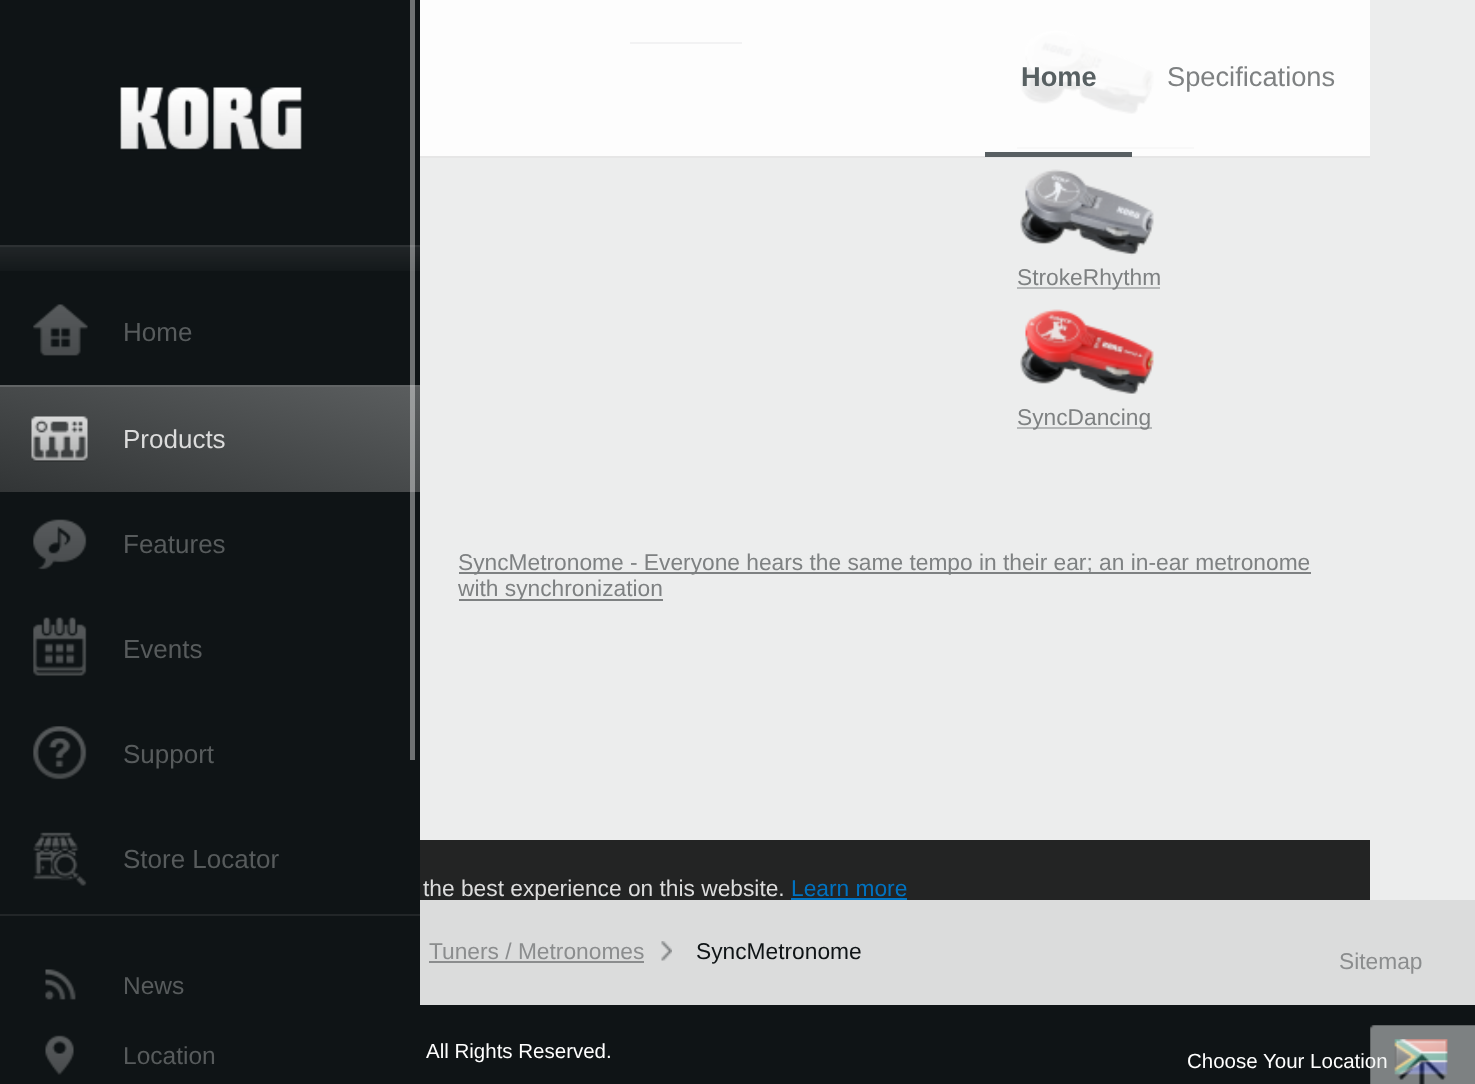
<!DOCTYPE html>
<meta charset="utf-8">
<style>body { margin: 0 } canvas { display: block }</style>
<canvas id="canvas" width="1475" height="1084"></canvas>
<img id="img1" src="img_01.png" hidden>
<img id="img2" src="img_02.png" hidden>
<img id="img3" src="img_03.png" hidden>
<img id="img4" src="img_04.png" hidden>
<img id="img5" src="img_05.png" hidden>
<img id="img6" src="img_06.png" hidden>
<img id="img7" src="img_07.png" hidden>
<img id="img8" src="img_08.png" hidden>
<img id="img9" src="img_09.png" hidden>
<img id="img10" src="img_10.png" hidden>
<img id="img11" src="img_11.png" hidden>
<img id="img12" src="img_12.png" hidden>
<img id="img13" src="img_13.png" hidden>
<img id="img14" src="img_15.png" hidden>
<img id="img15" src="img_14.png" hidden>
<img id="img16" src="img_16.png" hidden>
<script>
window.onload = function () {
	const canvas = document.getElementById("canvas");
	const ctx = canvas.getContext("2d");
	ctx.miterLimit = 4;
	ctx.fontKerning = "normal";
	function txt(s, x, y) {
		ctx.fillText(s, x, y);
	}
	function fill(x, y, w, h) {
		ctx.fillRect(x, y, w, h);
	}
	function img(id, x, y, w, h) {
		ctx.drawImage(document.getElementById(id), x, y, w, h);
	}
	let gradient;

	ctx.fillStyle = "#ECEDED";
	fill(0, 0, 1475, 1084);
	ctx.fillStyle = "#0F1416";
	fill(0, 247, 420, 837);
	img("img1", 0, 247, 420, 24);
	fill(0, 0, 420, 245);
	ctx.fillStyle = "#2D3133";
	fill(0, 245, 420, 2);
	img("img2", 120, 87, 182, 64);
	img("img3", 33, 304, 55, 52);
	gradient = ctx.createLinearGradient(185, 538, 235, 340);
	gradient.addColorStop(0, "#323536");
	gradient.addColorStop(1, "#5B5E5F");
	ctx.fillStyle = gradient;
	fill(0, 387, 420, 105);
	ctx.fillStyle = "#616465";
	fill(0, 385, 420, 2);
	img("img4", 31, 416, 57, 46);
	img("img5", 33, 519, 54, 51);
	img("img6", 33, 617, 54, 59);
	img("img7", 33, 726, 54, 54);
	img("img8", 33, 832, 54, 54);
	ctx.fillStyle = "#222628";
	fill(0, 914, 420, 2);
	img("img9", 45, 969, 31, 31);
	img("img10", 45, 1035, 29, 40);
	ctx.fillStyle = "rgba(255, 255, 255, 0.4)";
	fill(410, 0, 5, 760);
	ctx.fillStyle = "#E6E6E6";
	fill(420, 156, 950, 2);
	ctx.fillStyle = "#FDFDFD";
	fill(420, 0, 950, 156);
	ctx.fillStyle = "#585F62";
	fill(985, 152, 147, 5);
	ctx.fillStyle = "#232424";
	fill(420, 840, 950, 60);
	ctx.fillStyle = "#F2F2F3";
	fill(630, 42, 112, 2);
	img("img11", 1020, 30, 134, 84);
	ctx.fillStyle = "#F8F8F8";
	fill(1017, 147, 177, 2);
	img("img12", 1020, 169, 134, 87);
	ctx.fillStyle = "#B5B7B8";
	fill(1017, 287, 143, 2);
	img("img13", 1020, 309, 134, 85);
	fill(1017, 427, 135, 2);
	ctx.fillStyle = "#7E8182";
	fill(459, 572, 852, 2);
	fill(459, 599, 204, 2);
	ctx.fillStyle = "#0072C0";
	fill(791, 898, 116, 2);
	ctx.fillStyle = "#0F1416";
	fill(420, 1005, 1055, 79);
	img("img14", 1394, 1039, 54, 36);
	ctx.font = "26px Liberation Sans";
	ctx.fillStyle = "#575B5C";
	txt("Home", 123, 341);
	ctx.fillStyle = "#DCDCDC";
	txt("Products", 123, 448);
	ctx.fillStyle = "#575B5C";
	txt("Features", 123, 553);
	txt("Events", 123, 658);
	txt("Support", 123, 763);
	txt("Store Locator", 123, 868);
	ctx.font = "24.5px Liberation Sans";
	txt("News", 123, 994);
	txt("Location", 123, 1064);
	ctx.font = "bold 27.25px Liberation Sans";
	ctx.fillStyle = "#586062";
	txt("Home", 1021, 86);
	ctx.font = "27.25px Liberation Sans";
	ctx.fillStyle = "#7E8182";
	txt("Specifications", 1167, 86);
	ctx.font = "22.75px Liberation Sans";
	txt("StrokeRhythm", 1017, 285);
	txt("SyncDancing", 1017, 425);
	txt("SyncMetronome - Everyone hears the same tempo in their ear; an in-ear metronome", 458, 570);
	txt("with synchronization", 458, 596);
	ctx.fillStyle = "#DCDCDC";
	txt("the best experience on this website.", 423, 896);
	ctx.fillStyle = "#0072C0";
	txt("Learn more", 791, 896);
	ctx.fillStyle = "#DBDCDC";
	fill(420, 900, 1055, 105);
	ctx.fillStyle = "#8B8D8E";
	txt("Tuners / Metronomes", 429, 959);
	fill(429, 961, 215, 2);
	img("img15", 661, 941, 11, 20);
	ctx.fillStyle = "#0F1416";
	txt("SyncMetronome", 696, 959);
	ctx.fillStyle = "#8B8D8E";
	txt("Sitemap", 1339, 969);
	ctx.font = "20.5px Liberation Sans";
	ctx.fillStyle = "#FFFFFF";
	txt("All Rights Reserved.", 426, 1058);
	txt("Choose Your Location", 1187, 1068);
	img("img16", 1370, 1025, 105, 59);
};
</script>
